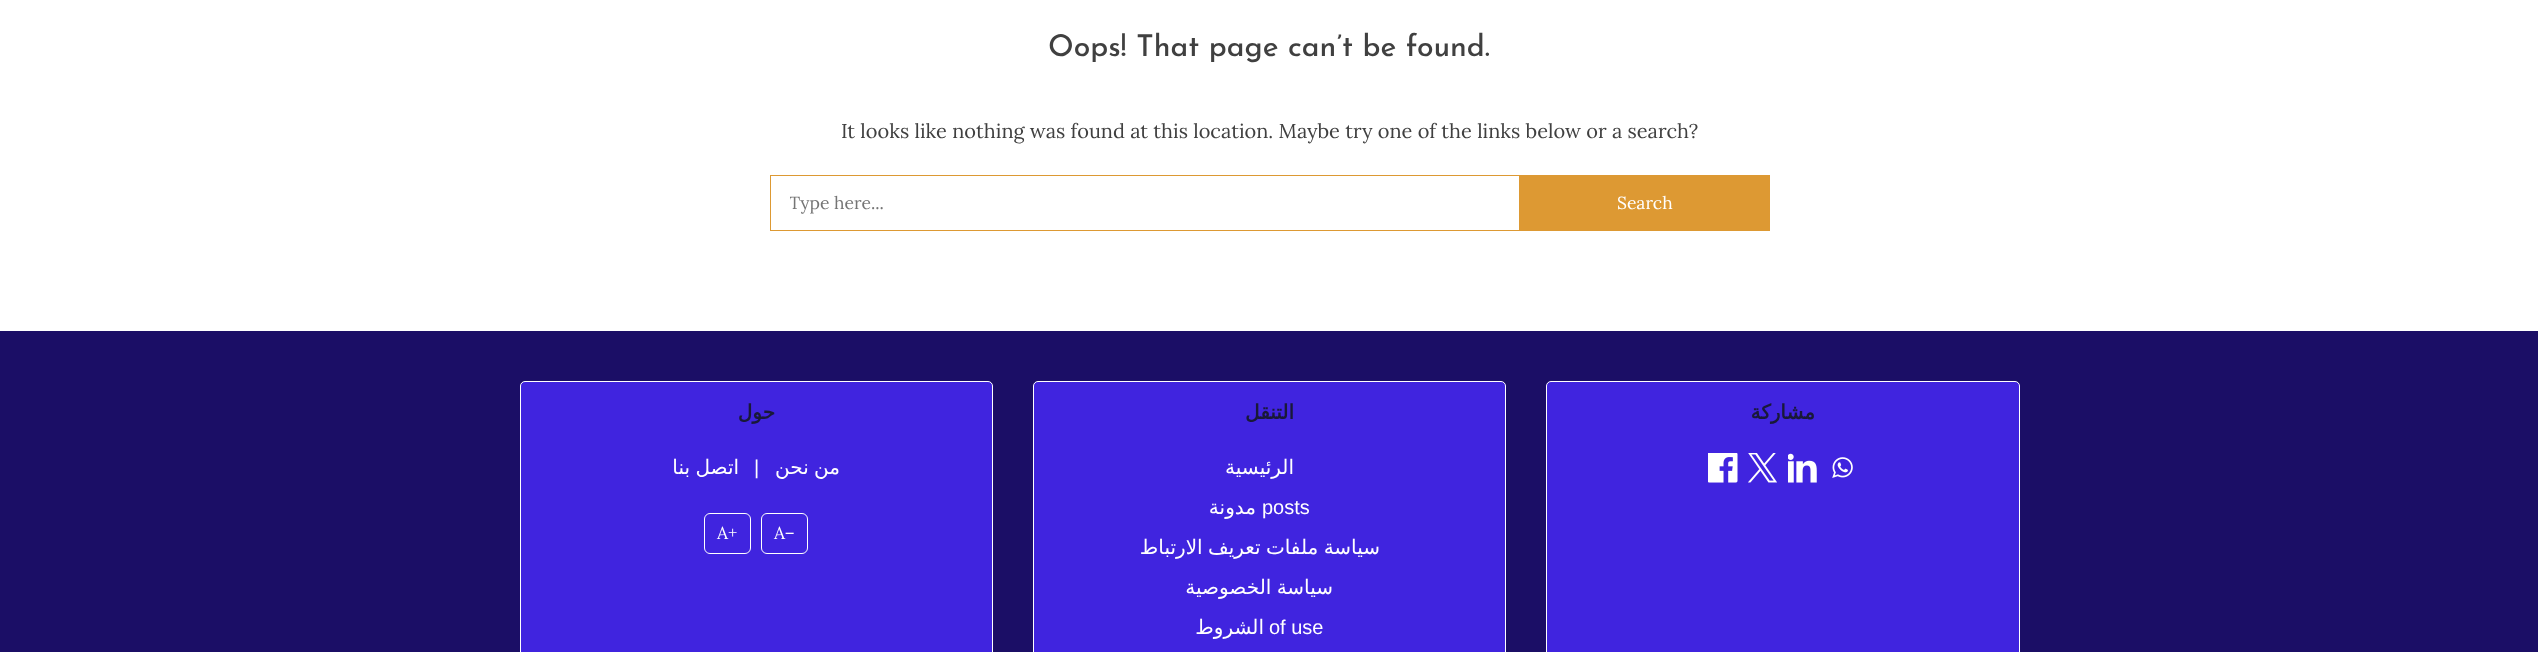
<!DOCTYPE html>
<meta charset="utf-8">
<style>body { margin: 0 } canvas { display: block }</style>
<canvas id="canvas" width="2538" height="652"></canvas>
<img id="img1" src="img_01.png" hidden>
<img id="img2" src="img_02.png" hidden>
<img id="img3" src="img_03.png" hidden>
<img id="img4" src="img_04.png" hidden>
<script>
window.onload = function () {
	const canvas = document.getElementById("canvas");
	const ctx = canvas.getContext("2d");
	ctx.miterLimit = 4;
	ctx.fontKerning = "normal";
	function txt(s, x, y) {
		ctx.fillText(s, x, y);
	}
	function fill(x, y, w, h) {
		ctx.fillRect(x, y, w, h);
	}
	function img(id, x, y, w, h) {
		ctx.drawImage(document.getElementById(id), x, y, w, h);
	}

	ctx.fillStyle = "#FFFFFF";
	fill(0, 0, 2538, 652);
	ctx.strokeStyle = "#DD9933";
	ctx.strokeRect(770.5, 175.5, 749, 55);
	ctx.fillStyle = "#DD9933";
	fill(1520, 175, 250, 56);
	ctx.fillStyle = "#1B0E66";
	fill(0, 331, 2538, 321);
	ctx.fillStyle = "#4024DF";
	ctx.beginPath();
	ctx.roundRect(520.5, 381.5, 472, 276, 4.5);
	ctx.fill();
	ctx.strokeStyle = "#FFFFFF";
	ctx.stroke();
	ctx.beginPath();
	ctx.roundRect(704.5, 513.5, 46, 40, 5.5);
	ctx.stroke();
	ctx.beginPath();
	ctx.roundRect(761.5, 513.5, 46, 40, 5.5);
	ctx.stroke();
	ctx.beginPath();
	ctx.roundRect(1033.5, 381.5, 472, 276, 4.5);
	ctx.fill();
	ctx.stroke();
	ctx.beginPath();
	ctx.roundRect(1546.5, 381.5, 473, 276, 4.5);
	ctx.fill();
	ctx.stroke();
	img("img1", 1708, 453, 30, 30);
	img("img2", 1748, 453, 29, 30);
	img("img3", 1788, 453, 29, 30);
	img("img4", 1832, 457, 21, 21);
	ctx.font = "500 30px Josefin Sans";
	ctx.fillStyle = "#404040";
	txt("Oops! That page can’t be found.", 1048, 56);
	ctx.font = "20px Lora";
	txt("It looks like nothing was found at this location. Maybe try one of the links below or a search?", 841, 138);
	ctx.save();
	ctx.beginPath();
	ctx.rect(790, 191, 693, 23);
	ctx.clip();
	ctx.font = "17.5px Lora";
	ctx.fillStyle = "#757575";
	txt("Type here...", 789, 209);
	ctx.restore();
	ctx.font = "17.5px Lora";
	ctx.fillStyle = "#FFFFFF";
	txt("Search", 1617, 209);
	ctx.direction = "rtl";
	ctx.font = "bold 20px DejaVu Sans";
	ctx.fillStyle = "#191938";
	txt("حول", 775, 419);
	ctx.wordSpacing = "-1px";
	ctx.font = "20px DejaVu Sans";
	ctx.fillStyle = "#FFFFFF";
	txt("اتصل بنا", 739, 474);
	ctx.wordSpacing = "0px";
	ctx.direction = "ltr";
	ctx.font = "20px Liberation Sans";
	txt("|", 754, 474);
	ctx.wordSpacing = "-1px";
	ctx.direction = "rtl";
	ctx.font = "20px DejaVu Sans";
	txt("من نحن", 840, 474);
	ctx.wordSpacing = "0px";
	ctx.direction = "ltr";
	ctx.font = "17.5px Lora";
	txt("A+", 717, 539);
	txt("A–", 774, 539);
	ctx.direction = "rtl";
	ctx.font = "bold 20px DejaVu Sans";
	ctx.fillStyle = "#191938";
	txt("التنقل", 1294, 419);
	ctx.font = "20px DejaVu Sans";
	ctx.fillStyle = "#FFFFFF";
	txt("الرئيسية", 1294, 474);
	txt("مدونة", 1256, 514);
	ctx.direction = "ltr";
	ctx.font = "20px Liberation Sans";
	txt("posts", 1262, 514);
	ctx.wordSpacing = "-1px";
	ctx.direction = "rtl";
	ctx.font = "20px DejaVu Sans";
	txt("سياسة ملفات تعريف الارتباط", 1380, 554);
	txt("سياسة الخصوصية", 1333, 594);
	ctx.wordSpacing = "0px";
	txt("الشروط", 1264, 634);
	ctx.direction = "ltr";
	ctx.font = "20px Liberation Sans";
	txt("of use", 1269, 634);
	ctx.direction = "rtl";
	ctx.font = "bold 20px DejaVu Sans";
	ctx.fillStyle = "#191938";
	txt("مشاركة", 1815, 419);
};
</script>
